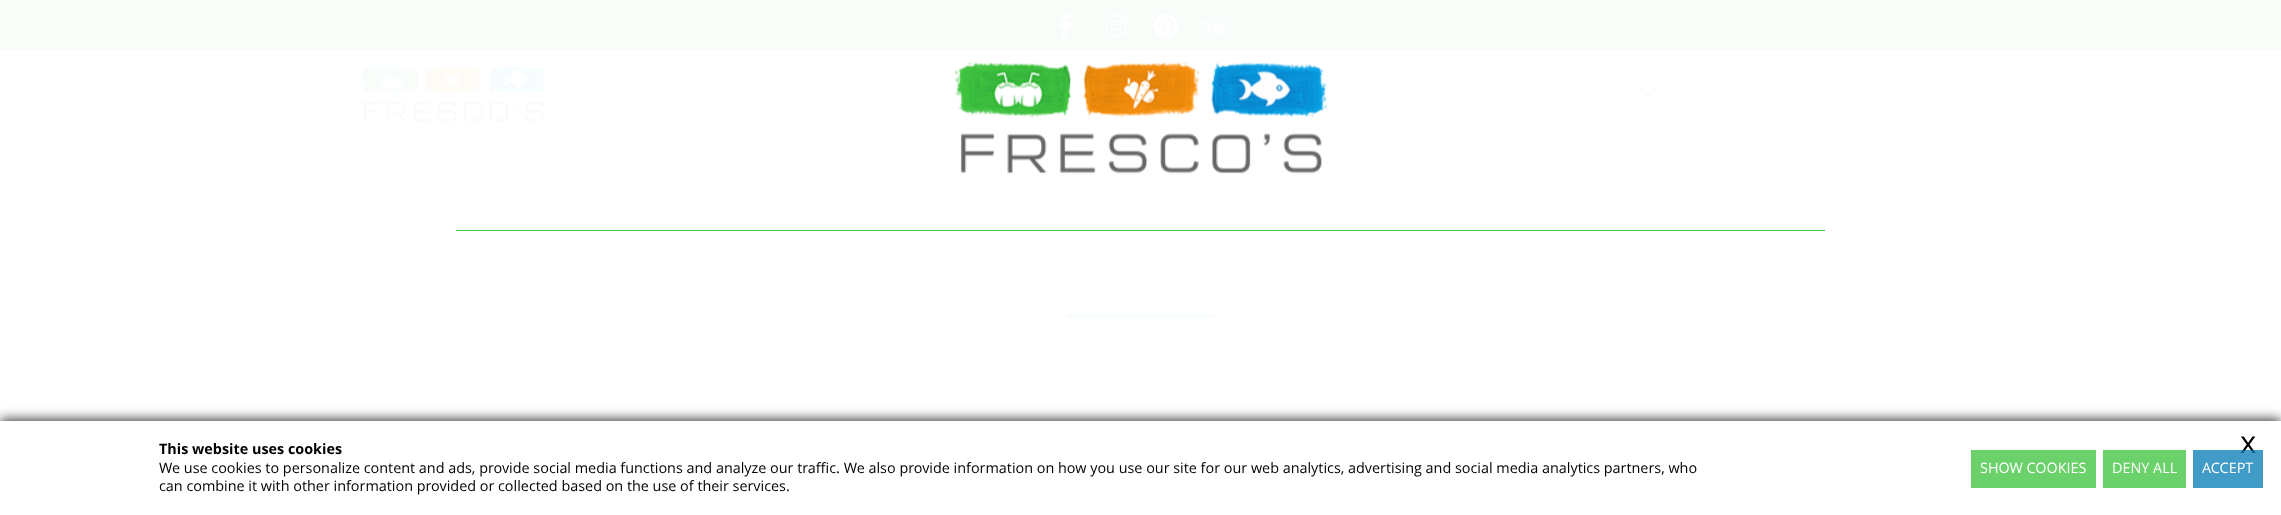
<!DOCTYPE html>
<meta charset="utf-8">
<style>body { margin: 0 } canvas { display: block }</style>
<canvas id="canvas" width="2281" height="515"></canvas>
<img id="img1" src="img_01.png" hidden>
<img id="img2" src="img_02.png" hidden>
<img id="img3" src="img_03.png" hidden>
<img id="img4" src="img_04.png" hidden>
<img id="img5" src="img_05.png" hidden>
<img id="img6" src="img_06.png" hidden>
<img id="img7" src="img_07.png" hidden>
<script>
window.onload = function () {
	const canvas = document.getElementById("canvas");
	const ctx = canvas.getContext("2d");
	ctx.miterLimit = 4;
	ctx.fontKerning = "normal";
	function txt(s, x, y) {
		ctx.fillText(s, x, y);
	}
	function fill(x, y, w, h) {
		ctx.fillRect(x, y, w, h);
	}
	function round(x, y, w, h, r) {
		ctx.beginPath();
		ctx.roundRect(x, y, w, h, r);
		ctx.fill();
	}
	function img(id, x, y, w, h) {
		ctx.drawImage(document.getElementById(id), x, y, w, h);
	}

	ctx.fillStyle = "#F9FDF9";
	fill(0, 0, 2281, 515);
	img("img1", 1058, 13, 14, 26);
	img("img2", 1105, 14, 22, 23);
	img("img3", 1153, 13, 25, 25);
	img("img4", 1201, 17, 29, 17);
	ctx.fillStyle = "#FFFFFF";
	fill(0, 50, 2281, 371);
	ctx.fillStyle = "#F9FDF9";
	round(1066, 314, 150, 4, 2);
	img("img5", 955, 62, 372, 112);
	ctx.fillStyle = "#3FC43E";
	fill(456, 230, 1369, 1);
	img("img6", 360, 66, 187, 56);
	img("img7", 1641, 89, 14, 8);
	ctx.fillStyle = "rgba(0, 0, 0, 0.75)";
	ctx.filter = "blur(6px)";
	ctx.beginPath();
	ctx.rect(0, 419, 2281, 94);
	ctx.fill();
	ctx.filter = "none";
	ctx.fillStyle = "#FFFFFF";
	fill(0, 421, 2281, 94);
	ctx.fillStyle = "#6BD16A";
	fill(1971, 450, 125, 38);
	fill(2103, 450, 83, 38);
	ctx.font = "bold 14.38px Open Sans";
	ctx.fillStyle = "#000000";
	txt("This website uses cookies", 159, 454);
	ctx.font = "14.38px Open Sans";
	txt("We use cookies to personalize content and ads, provide social media functions and analyze our traffic. We also provide information on how you use our site for our web analytics, advertising and social media analytics partners, who", 159, 473);
	txt("can combine it with other information provided or collected based on the use of their services.", 159, 491);
	ctx.font = "31px Open Sans";
	txt("x", 2240, 453);
	ctx.font = "14.38px Open Sans";
	ctx.fillStyle = "#FFFFFF";
	txt("SHOW COOKIES", 1980, 473);
	txt("DENY ALL", 2112, 473);
	ctx.fillStyle = "rgba(0, 122, 179, 0.75)";
	fill(2193, 450, 70, 38);
	ctx.fillStyle = "#FFFFFF";
	txt("ACCEPT", 2202, 473);
};
</script>
